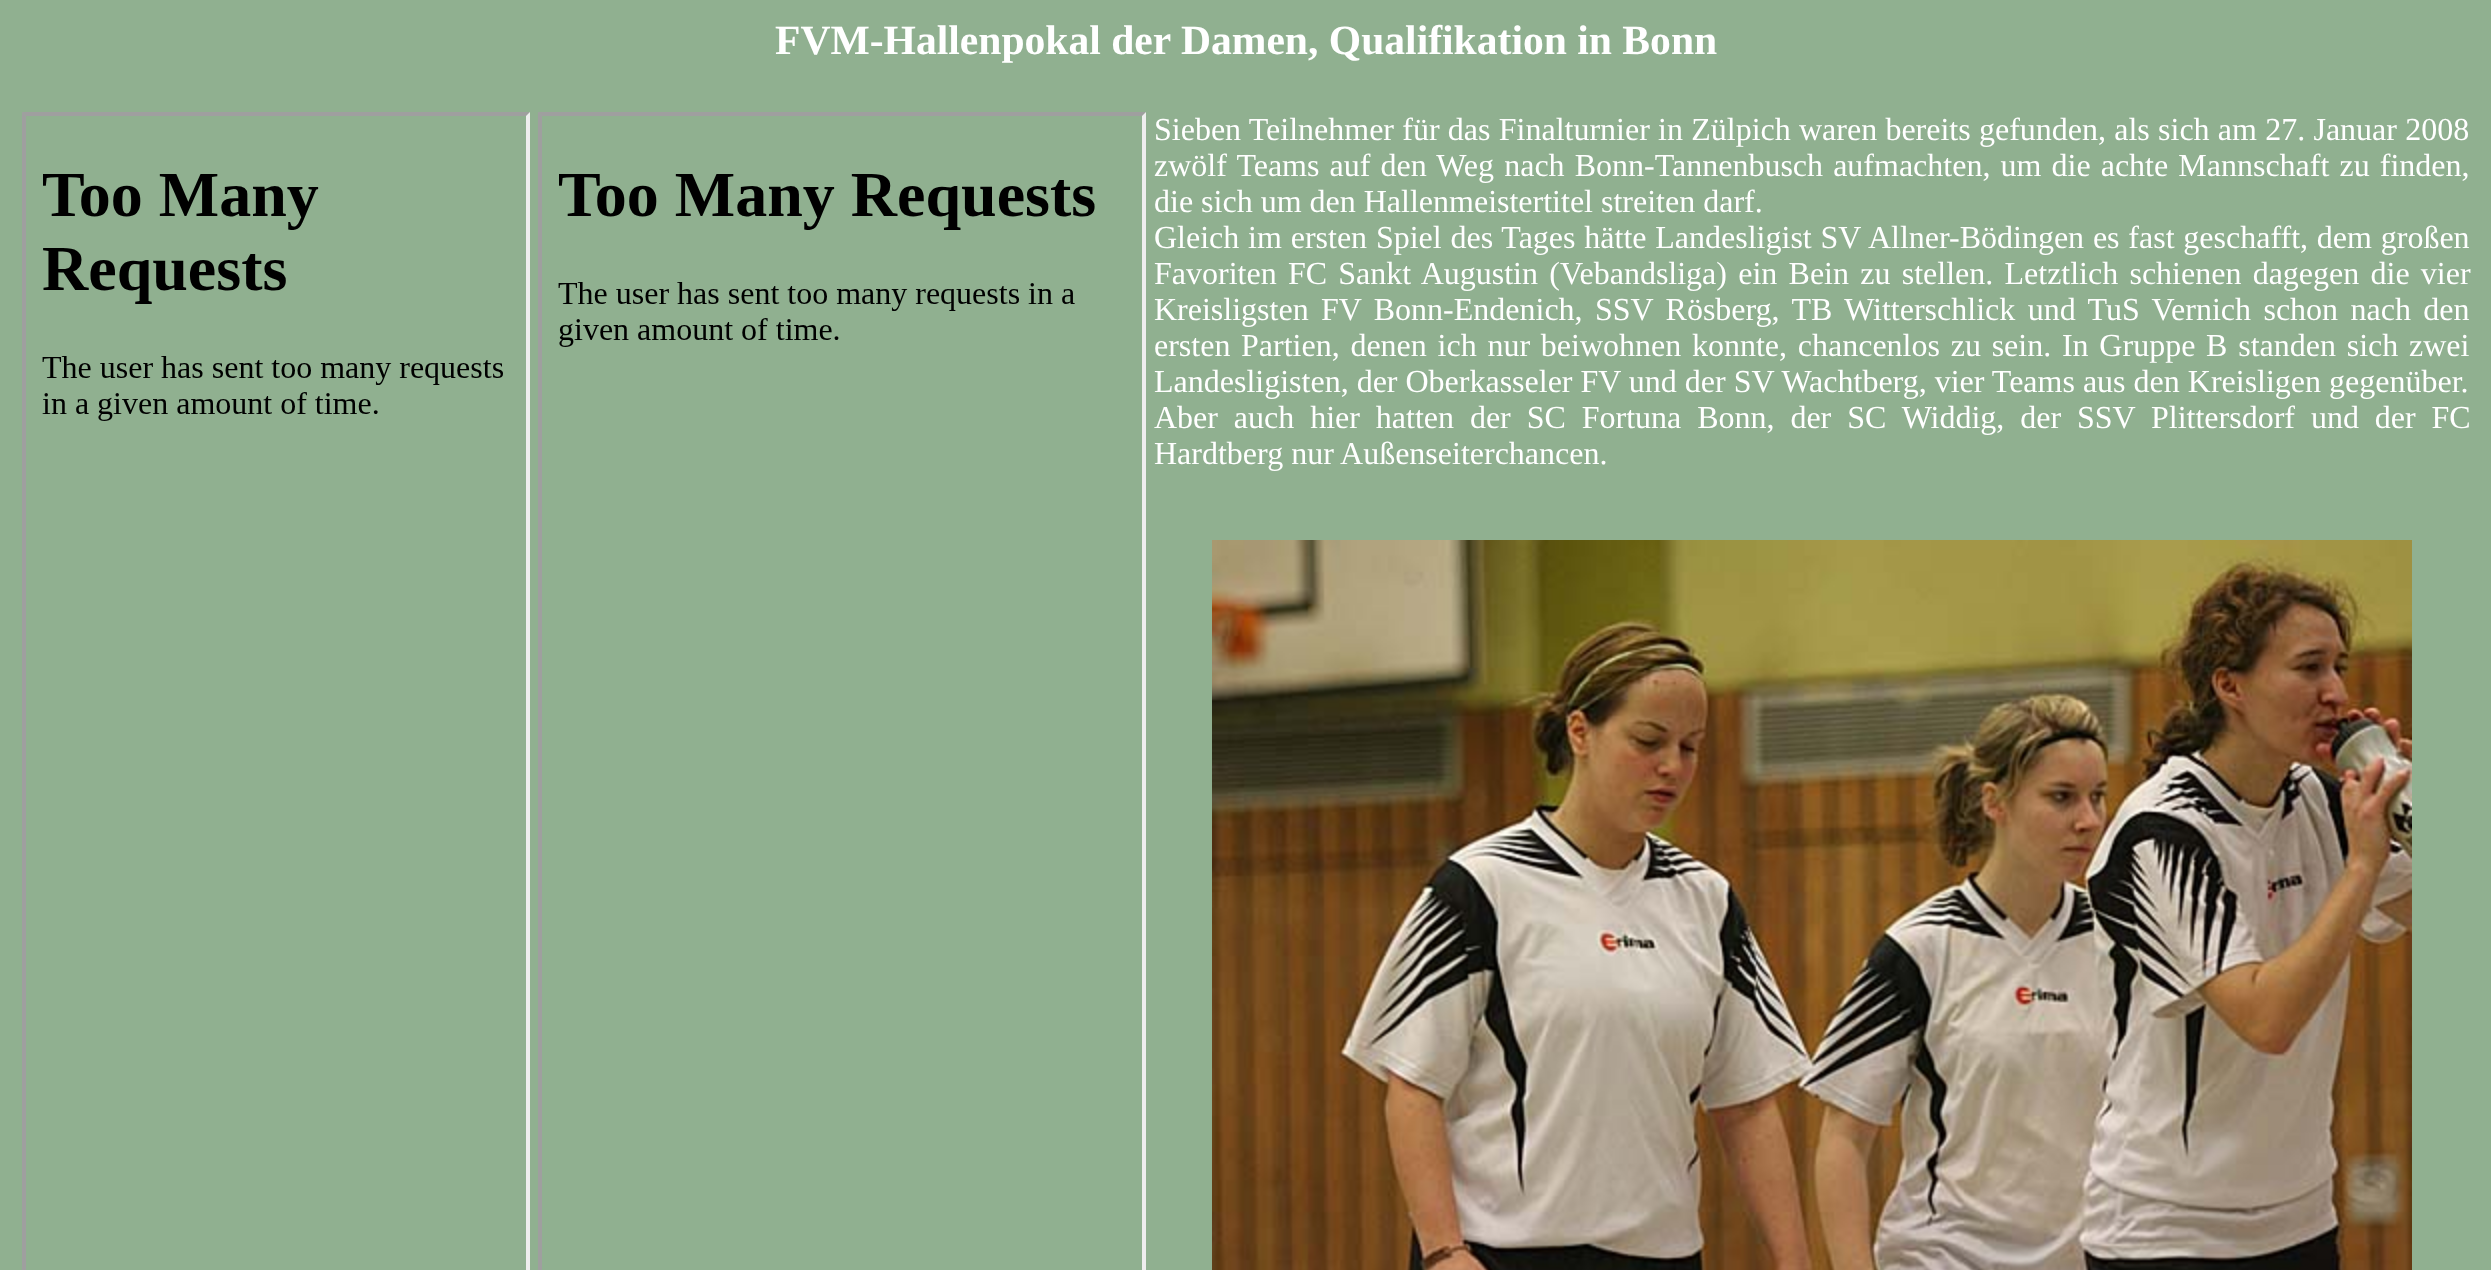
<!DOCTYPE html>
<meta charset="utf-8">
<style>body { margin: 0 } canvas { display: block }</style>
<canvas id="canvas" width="2491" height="1270"></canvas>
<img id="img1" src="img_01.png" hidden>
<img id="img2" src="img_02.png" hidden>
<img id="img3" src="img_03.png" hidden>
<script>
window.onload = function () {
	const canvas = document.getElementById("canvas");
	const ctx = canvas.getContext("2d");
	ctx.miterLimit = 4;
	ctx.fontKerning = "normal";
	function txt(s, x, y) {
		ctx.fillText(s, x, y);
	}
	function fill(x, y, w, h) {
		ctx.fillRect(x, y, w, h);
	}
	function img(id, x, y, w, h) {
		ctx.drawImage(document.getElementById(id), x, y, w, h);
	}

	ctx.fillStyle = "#90B090";
	fill(0, 0, 2491, 1270);
	ctx.fillStyle = "#9F9F9F";
	ctx.beginPath();
	ctx.moveTo(22, 112);
	ctx.lineTo(530, 112);
	ctx.lineTo(526, 116);
	ctx.lineTo(26, 116);
	ctx.closePath();
	ctx.fill();
	ctx.beginPath();
	ctx.moveTo(22, 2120);
	ctx.lineTo(22, 112);
	ctx.lineTo(26, 116);
	ctx.lineTo(26, 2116);
	ctx.closePath();
	ctx.fill();
	img("img1", 42, 174, 461, 247);
	ctx.fillStyle = "#EEEEEE";
	ctx.beginPath();
	ctx.moveTo(530, 112);
	ctx.lineTo(530, 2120);
	ctx.lineTo(526, 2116);
	ctx.lineTo(526, 116);
	ctx.closePath();
	ctx.fill();
	ctx.fillStyle = "#9F9F9F";
	ctx.beginPath();
	ctx.moveTo(538, 112);
	ctx.lineTo(1146, 112);
	ctx.lineTo(1142, 116);
	ctx.lineTo(542, 116);
	ctx.closePath();
	ctx.fill();
	ctx.beginPath();
	ctx.moveTo(538, 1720);
	ctx.lineTo(538, 112);
	ctx.lineTo(542, 116);
	ctx.lineTo(542, 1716);
	ctx.closePath();
	ctx.fill();
	img("img2", 558, 174, 537, 173);
	ctx.fillStyle = "#EEEEEE";
	ctx.beginPath();
	ctx.moveTo(1146, 112);
	ctx.lineTo(1146, 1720);
	ctx.lineTo(1142, 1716);
	ctx.lineTo(1142, 116);
	ctx.closePath();
	ctx.fill();
	img("img3", 1212, 540, 1200, 730);
	ctx.font = "bold 41.6px Liberation Serif";
	ctx.fillStyle = "#FFFFFF";
	txt("FVM-Hallenpokal der Damen, Qualifikation in Bonn", 775, 54);
	ctx.wordSpacing = "0.25px";
	ctx.font = "32px Liberation Serif";
	txt("Sieben Teilnehmer für das Finalturnier in Zülpich waren bereits gefunden, als sich am 27. Januar 2008", 1154, 140);
	ctx.wordSpacing = "2.1px";
	txt("zwölf Teams auf den Weg nach Bonn-Tannenbusch aufmachten, um die achte Mannschaft zu finden,", 1154, 176);
	ctx.wordSpacing = "0px";
	txt("die sich um den Hallenmeistertitel streiten darf.", 1154, 212);
	ctx.wordSpacing = "0.8px";
	txt("Gleich im ersten Spiel des Tages hätte Landesligist SV Allner-Bödingen es fast geschafft, dem großen", 1154, 248);
	ctx.wordSpacing = "3.25px";
	txt("Favoriten FC Sankt Augustin (Vebandsliga) ein Bein zu stellen. Letztlich schienen dagegen die vier", 1154, 284);
	ctx.wordSpacing = "4.4px";
	txt("Kreisligsten FV Bonn-Endenich, SSV Rösberg, TB Witterschlick und TuS Vernich schon nach den", 1154, 320);
	ctx.wordSpacing = "0px";
	txt("ersten", 1154, 356);
	ctx.wordSpacing = "2.75px";
	txt("Partien, denen ich nur beiwohnen konnte, chancenlos zu sein. In Gruppe B standen sich zwei", 1241, 356);
	ctx.wordSpacing = "0px";
	txt("Landesligisten, der Oberkasseler FV und der SV Wachtberg, vier Teams aus den Kreisligen gegenüber.", 1154, 392);
	ctx.wordSpacing = "7.9px";
	txt("Aber auch hier hatten der SC Fortuna Bonn, der SC Widdig, der SSV Plittersdorf und der FC", 1154, 428);
	ctx.wordSpacing = "0px";
	txt("Hardtberg nur Außenseiterchancen.", 1154, 464);
};
</script>
